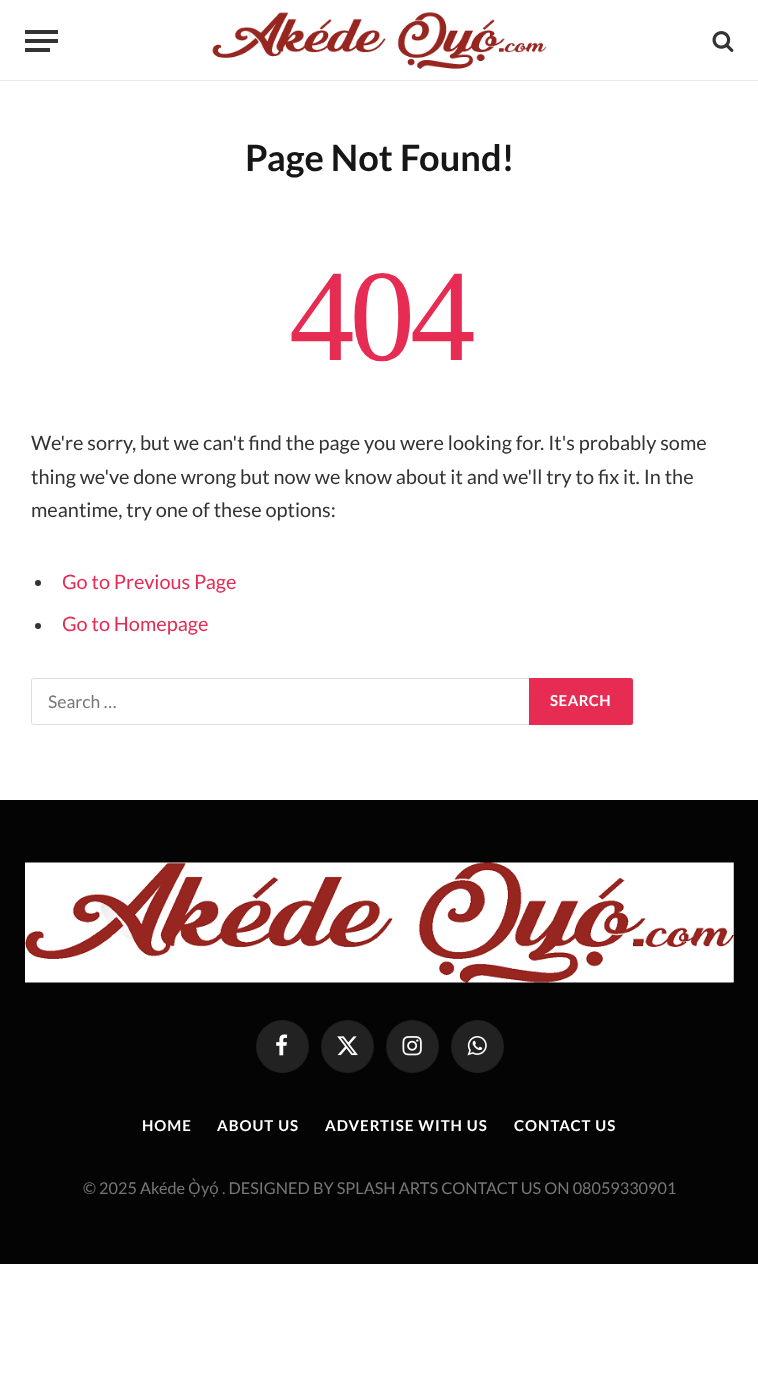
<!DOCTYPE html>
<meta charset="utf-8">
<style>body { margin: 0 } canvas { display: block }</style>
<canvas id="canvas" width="758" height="1374"></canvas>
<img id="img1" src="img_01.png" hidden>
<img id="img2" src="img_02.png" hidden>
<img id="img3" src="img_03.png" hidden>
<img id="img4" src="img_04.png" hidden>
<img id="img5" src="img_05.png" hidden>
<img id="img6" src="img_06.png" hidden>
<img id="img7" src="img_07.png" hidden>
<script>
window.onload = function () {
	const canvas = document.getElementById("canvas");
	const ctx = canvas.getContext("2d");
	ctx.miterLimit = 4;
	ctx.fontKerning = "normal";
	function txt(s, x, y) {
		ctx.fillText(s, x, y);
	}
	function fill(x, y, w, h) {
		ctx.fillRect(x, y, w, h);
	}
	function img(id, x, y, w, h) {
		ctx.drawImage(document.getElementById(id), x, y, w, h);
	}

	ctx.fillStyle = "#FFFFFF";
	fill(0, 0, 758, 1374);
	ctx.fillStyle = "#E8E8E8";
	fill(0, 80, 758, 1);
	ctx.fillStyle = "#333333";
	fill(25, 48, 25, 4);
	fill(25, 30, 33, 4);
	fill(25, 39, 33, 4);
	img("img1", 212, 12, 335, 57);
	img("img2", 712, 31, 22, 21);
	ctx.beginPath();
	ctx.arc(38, 583, 3, 0, Math.PI * 2);
	ctx.fill();
	ctx.beginPath();
	ctx.arc(38, 626, 3, 0, Math.PI * 2);
	ctx.fill();
	ctx.beginPath();
	ctx.roundRect(31.5, 678.5, 499, 46, 2);
	ctx.strokeStyle = "#DDDDDD";
	ctx.stroke();
	ctx.fillStyle = "rgba(0, 0, 0, 0.16)";
	ctx.filter = "blur(4.5px)";
	ctx.beginPath();
	ctx.rect(534, 685, 94, 38);
	ctx.fill();
	ctx.filter = "none";
	ctx.fillStyle = "#E62C53";
	ctx.beginPath();
	ctx.roundRect(529, 678, 104, 47, [0, 2.5, 2.5, 0]);
	ctx.fill();
	ctx.fillStyle = "#040404";
	fill(0, 800, 758, 464);
	img("img3", 25, 862, 709, 121);
	ctx.fillStyle = "#222222";
	ctx.beginPath();
	ctx.arc(282.5, 1046.5, 26.5, 0, Math.PI * 2);
	ctx.fill();
	ctx.beginPath();
	ctx.arc(282.5, 1046.5, 26, 0, Math.PI * 2);
	ctx.strokeStyle = "rgba(0, 0, 0, 0.09)";
	ctx.stroke();
	img("img4", 276, 1034, 12, 22);
	ctx.beginPath();
	ctx.arc(347.5, 1046.5, 26.5, 0, Math.PI * 2);
	ctx.fill();
	ctx.beginPath();
	ctx.arc(347.5, 1046.5, 26, 0, Math.PI * 2);
	ctx.stroke();
	img("img5", 337, 1036, 21, 20);
	ctx.beginPath();
	ctx.arc(412.5, 1046.5, 26.5, 0, Math.PI * 2);
	ctx.fill();
	ctx.beginPath();
	ctx.arc(412.5, 1046.5, 26, 0, Math.PI * 2);
	ctx.stroke();
	img("img6", 402, 1036, 20, 20);
	ctx.beginPath();
	ctx.arc(477.5, 1046.5, 26.5, 0, Math.PI * 2);
	ctx.fill();
	ctx.beginPath();
	ctx.arc(477.5, 1046.5, 26, 0, Math.PI * 2);
	ctx.stroke();
	img("img7", 467, 1036, 20, 20);
	ctx.font = "bold 36.25px Lato";
	ctx.fillStyle = "#161616";
	txt("Page Not Found!", 245, 171);
	ctx.letterSpacing = "-5px";
	ctx.font = "131px Liberation Serif";
	ctx.fillStyle = "#E62C53";
	txt("404", 289, 360);
	ctx.letterSpacing = "0px";
	ctx.font = "19.9px Lato";
	ctx.fillStyle = "#333333";
	txt("We're sorry, but we can't find the page you were looking for. It's probably some", 31, 450);
	txt("thing we've done wrong but now we know about it and we'll try to fix it. In the", 31, 484);
	txt("meantime, try one of these options:", 31, 517);
	ctx.fillStyle = "#E62C53";
	txt("Go to Previous Page", 62, 589);
	txt("Go to Homepage", 62, 631);
	ctx.font = "17.5px Lato";
	ctx.fillStyle = "#777777";
	txt("Search …", 48, 708);
	ctx.letterSpacing = "0.5px";
	ctx.font = "bold 15px Lato";
	ctx.fillStyle = "#FFFFFF";
	txt("SEARCH", 550, 706);
	ctx.letterSpacing = "1px";
	txt("HOME", 142, 1131);
	txt("ABOUT US", 217, 1131);
	txt("ADVERTISE WITH US", 325, 1131);
	txt("CONTACT US", 514, 1131);
	ctx.letterSpacing = "0px";
	ctx.font = "16.25px Lato";
	ctx.fillStyle = "#777777";
	txt("© 2025 Akéde", 83, 1194);
	ctx.font = "16.25px Noto Sans";
	txt("Ọ̀", 188, 1194);
	ctx.font = "16.25px Lato";
	txt(". DESIGNED BY SPLASH ARTS CONTACT US ON 08059330901", 222, 1194);
	txt("y", 201, 1194);
	ctx.font = "16.25px Noto Sans";
	txt("ọ́", 209, 1194);
};
</script>
